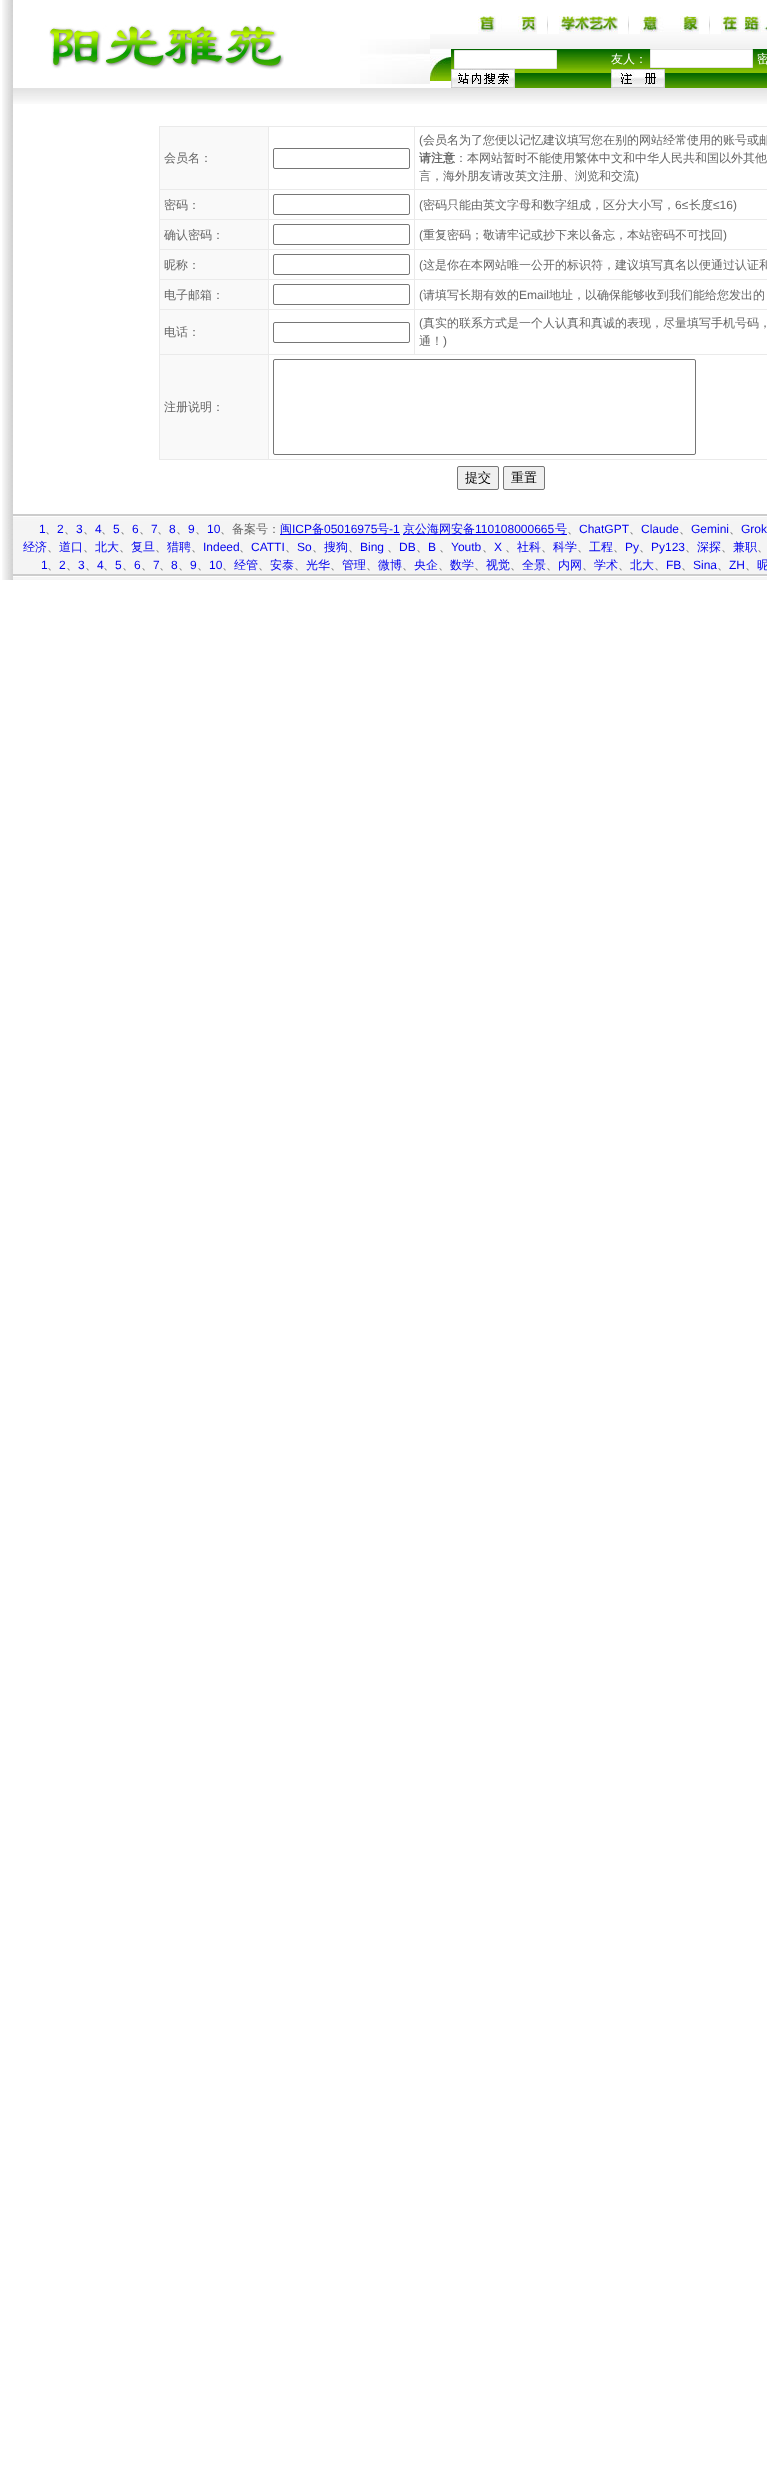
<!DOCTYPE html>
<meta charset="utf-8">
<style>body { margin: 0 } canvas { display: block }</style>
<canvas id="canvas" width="767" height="2485"></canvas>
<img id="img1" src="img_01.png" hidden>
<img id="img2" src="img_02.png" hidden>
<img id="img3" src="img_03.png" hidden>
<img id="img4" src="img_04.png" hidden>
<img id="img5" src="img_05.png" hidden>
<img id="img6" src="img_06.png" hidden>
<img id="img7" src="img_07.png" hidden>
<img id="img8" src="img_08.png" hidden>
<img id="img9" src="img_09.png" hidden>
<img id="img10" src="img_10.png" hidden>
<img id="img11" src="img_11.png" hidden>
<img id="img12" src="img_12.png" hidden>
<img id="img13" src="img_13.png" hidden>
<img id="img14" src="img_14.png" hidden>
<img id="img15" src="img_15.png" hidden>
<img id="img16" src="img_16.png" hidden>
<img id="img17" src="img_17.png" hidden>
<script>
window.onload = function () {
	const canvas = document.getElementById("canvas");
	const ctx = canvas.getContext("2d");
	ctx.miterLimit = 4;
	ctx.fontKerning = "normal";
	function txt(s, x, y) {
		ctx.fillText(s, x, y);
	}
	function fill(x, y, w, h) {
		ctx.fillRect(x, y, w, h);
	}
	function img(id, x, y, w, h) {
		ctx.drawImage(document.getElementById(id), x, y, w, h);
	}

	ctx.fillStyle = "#FFFFFF";
	fill(0, 0, 767, 2485);
	img("img1", 2, 0, 11, 514);
	img("img2", 49, 25, 235, 45);
	img("img3", 360, 39, 70, 45);
	img("img4", 430, 34, 337, 23);
	img("img5", 478, 16, 59, 18);
	img("img6", 547, 16, 1, 18);
	img("img7", 559, 16, 59, 18);
	img("img6", 628, 16, 1, 18);
	img("img8", 640, 16, 59, 18);
	img("img6", 709, 16, 1, 18);
	img("img9", 721, 16, 46, 18);
	img("img10", 430, 57, 21, 24);
	img("img11", 451, 49, 160, 39);
	ctx.beginPath();
	ctx.rect(454.5, 50.5, 102, 18);
	ctx.fill();
	ctx.strokeStyle = "#E4E4E4";
	ctx.stroke();
	img("img12", 451, 69, 64, 19);
	img("img13", 611, 49, 156, 39);
	ctx.beginPath();
	ctx.rect(650.5, 49.5, 102, 18);
	ctx.fill();
	ctx.stroke();
	img("img14", 611, 69, 54, 19);
	img("img15", 13, 88, 754, 16);
	ctx.fillStyle = "#EAEAEA";
	fill(159, 126, 608, 334);
	ctx.fillStyle = "#F9F9F9";
	fill(160, 127, 108, 62);
	ctx.fillStyle = "#FFFFFF";
	fill(269, 127, 145, 62);
	ctx.beginPath();
	ctx.roundRect(273.5, 148.5, 136, 20, 1.5);
	ctx.strokeStyle = "#767676";
	ctx.stroke();
	fill(415, 127, 352, 62);
	ctx.fillStyle = "#F9F9F9";
	fill(160, 190, 108, 29);
	ctx.fillStyle = "#FFFFFF";
	fill(269, 190, 145, 29);
	ctx.beginPath();
	ctx.roundRect(273.5, 194.5, 136, 20, 1.5);
	ctx.stroke();
	fill(415, 190, 352, 29);
	ctx.fillStyle = "#F9F9F9";
	fill(160, 220, 108, 29);
	ctx.fillStyle = "#FFFFFF";
	fill(269, 220, 145, 29);
	ctx.beginPath();
	ctx.roundRect(273.5, 224.5, 136, 20, 1.5);
	ctx.stroke();
	fill(415, 220, 352, 29);
	ctx.fillStyle = "#F9F9F9";
	fill(160, 250, 108, 29);
	ctx.fillStyle = "#FFFFFF";
	fill(269, 250, 145, 29);
	ctx.beginPath();
	ctx.roundRect(273.5, 254.5, 136, 20, 1.5);
	ctx.stroke();
	fill(415, 250, 352, 29);
	ctx.fillStyle = "#F9F9F9";
	fill(160, 280, 108, 29);
	ctx.fillStyle = "#FFFFFF";
	fill(269, 280, 145, 29);
	ctx.beginPath();
	ctx.roundRect(273.5, 284.5, 136, 20, 1.5);
	ctx.stroke();
	fill(415, 280, 352, 29);
	ctx.fillStyle = "#F9F9F9";
	fill(160, 310, 108, 44);
	ctx.fillStyle = "#FFFFFF";
	fill(269, 310, 145, 44);
	ctx.beginPath();
	ctx.roundRect(273.5, 322.5, 136, 20, 1.5);
	ctx.stroke();
	fill(415, 310, 352, 44);
	ctx.fillStyle = "#F9F9F9";
	fill(160, 355, 108, 104);
	ctx.fillStyle = "#FFFFFF";
	fill(269, 355, 498, 104);
	ctx.beginPath();
	ctx.roundRect(273.5, 359.5, 422, 95, 1.5);
	ctx.stroke();
	ctx.fillStyle = "#EFEFEF";
	ctx.beginPath();
	ctx.roundRect(457.5, 466.5, 41, 23, 1.5);
	ctx.fill();
	ctx.stroke();
	ctx.beginPath();
	ctx.roundRect(503.5, 466.5, 41, 23, 1.5);
	ctx.fill();
	ctx.stroke();
	img("img16", 2, 514, 11, 66);
	img("img17", 13, 514, 754, 66);
	ctx.fillStyle = "#0000EE";
	fill(280, 534, 120, 1);
	fill(403, 534, 164, 1);
	ctx.font = "500 12px WenQuanYi Zen Hei";
	ctx.fillStyle = "#FFFFFF";
	txt("友人：", 611, 63);
	txt("密", 757, 63);
	ctx.fillStyle = "#666666";
	txt("会员名：", 164, 162);
	ctx.font = "12px Liberation Sans";
	txt("(", 419, 144);
	ctx.font = "500 12px WenQuanYi Zen Hei";
	txt("会员名为了您便以记忆建议填写您在别的网站经常使用的账号或邮", 423, 144);
	ctx.font = "bold 12px WenQuanYi Zen Hei";
	txt("请注意", 419, 162);
	ctx.font = "500 12px WenQuanYi Zen Hei";
	txt("：本网站暂时不能使用繁体中文和中华人民共和国以外其他", 455, 162);
	txt("言，海外朋友请改英文注册、浏览和交流", 419, 180);
	ctx.font = "12px Liberation Sans";
	txt(")", 635, 180);
	ctx.font = "500 12px WenQuanYi Zen Hei";
	txt("密码：", 164, 209);
	ctx.font = "12px Liberation Sans";
	txt("(", 419, 209);
	ctx.font = "500 12px WenQuanYi Zen Hei";
	txt("密码只能由英文字母和数字组成，区分大小写，", 423, 209);
	ctx.font = "12px Liberation Sans";
	txt("6≤", 675, 209);
	ctx.font = "500 12px WenQuanYi Zen Hei";
	txt("长度", 689, 209);
	ctx.font = "12px Liberation Sans";
	txt("≤16)", 713, 209);
	ctx.font = "500 12px WenQuanYi Zen Hei";
	txt("确认密码：", 164, 239);
	ctx.font = "12px Liberation Sans";
	txt("(", 419, 239);
	ctx.font = "500 12px WenQuanYi Zen Hei";
	txt("重复密码；敬请牢记或抄下来以备忘，本站密码不可找回", 423, 239);
	ctx.font = "12px Liberation Sans";
	txt(")", 723, 239);
	ctx.font = "500 12px WenQuanYi Zen Hei";
	txt("昵称：", 164, 269);
	ctx.font = "12px Liberation Sans";
	txt("(", 419, 269);
	ctx.font = "500 12px WenQuanYi Zen Hei";
	txt("这是你在本网站唯一公开的标识符，建议填写真名以便通过认证和", 423, 269);
	txt("电子邮箱：", 164, 299);
	ctx.font = "12px Liberation Sans";
	txt("(", 419, 299);
	ctx.font = "500 12px WenQuanYi Zen Hei";
	txt("请填写长期有效的", 423, 299);
	ctx.font = "12px Liberation Sans";
	txt("Email", 519, 299);
	ctx.font = "500 12px WenQuanYi Zen Hei";
	txt("地址，以确保能够收到我们能给您发出的", 549, 299);
	txt("电话：", 164, 336);
	ctx.font = "12px Liberation Sans";
	txt("(", 419, 327);
	ctx.font = "500 12px WenQuanYi Zen Hei";
	txt("真实的联系方式是一个人认真和真诚的表现，尽量填写手机号码，", 423, 327);
	txt("通！", 419, 345);
	ctx.font = "12px Liberation Sans";
	txt(")", 443, 345);
	ctx.font = "500 12px WenQuanYi Zen Hei";
	txt("注册说明：", 164, 411);
	ctx.font = "500 13px WenQuanYi Zen Hei";
	ctx.fillStyle = "#000000";
	txt("提交", 465, 482);
	txt("重置", 511, 482);
	ctx.font = "12px Liberation Sans";
	ctx.fillStyle = "#0000EE";
	txt("1", 39, 533);
	ctx.font = "500 12px WenQuanYi Zen Hei";
	ctx.fillStyle = "#666666";
	txt("、", 45, 533);
	ctx.font = "12px Liberation Sans";
	ctx.fillStyle = "#0000EE";
	txt("2", 57, 533);
	ctx.font = "500 12px WenQuanYi Zen Hei";
	ctx.fillStyle = "#666666";
	txt("、", 64, 533);
	ctx.font = "12px Liberation Sans";
	ctx.fillStyle = "#0000EE";
	txt("3", 76, 533);
	ctx.font = "500 12px WenQuanYi Zen Hei";
	ctx.fillStyle = "#666666";
	txt("、", 83, 533);
	ctx.font = "12px Liberation Sans";
	ctx.fillStyle = "#0000EE";
	txt("4", 95, 533);
	ctx.font = "500 12px WenQuanYi Zen Hei";
	ctx.fillStyle = "#666666";
	txt("、", 101, 533);
	ctx.font = "12px Liberation Sans";
	ctx.fillStyle = "#0000EE";
	txt("5", 113, 533);
	ctx.font = "500 12px WenQuanYi Zen Hei";
	ctx.fillStyle = "#666666";
	txt("、", 120, 533);
	ctx.font = "12px Liberation Sans";
	ctx.fillStyle = "#0000EE";
	txt("6", 132, 533);
	ctx.font = "500 12px WenQuanYi Zen Hei";
	ctx.fillStyle = "#666666";
	txt("、", 139, 533);
	ctx.font = "12px Liberation Sans";
	ctx.fillStyle = "#0000EE";
	txt("7", 151, 533);
	ctx.font = "500 12px WenQuanYi Zen Hei";
	ctx.fillStyle = "#666666";
	txt("、", 157, 533);
	ctx.font = "12px Liberation Sans";
	ctx.fillStyle = "#0000EE";
	txt("8", 169, 533);
	ctx.font = "500 12px WenQuanYi Zen Hei";
	ctx.fillStyle = "#666666";
	txt("、", 176, 533);
	ctx.font = "12px Liberation Sans";
	ctx.fillStyle = "#0000EE";
	txt("9", 188, 533);
	ctx.font = "500 12px WenQuanYi Zen Hei";
	ctx.fillStyle = "#666666";
	txt("、", 195, 533);
	ctx.font = "12px Liberation Sans";
	ctx.fillStyle = "#0000EE";
	txt("10", 207, 533);
	ctx.font = "500 12px WenQuanYi Zen Hei";
	ctx.fillStyle = "#666666";
	txt("、备案号：", 220, 533);
	ctx.fillStyle = "#0000EE";
	txt("闽", 280, 533);
	ctx.font = "12px Liberation Sans";
	txt("ICP", 292, 533);
	ctx.font = "500 12px WenQuanYi Zen Hei";
	txt("备", 312, 533);
	ctx.font = "12px Liberation Sans";
	txt("05016975", 324, 533);
	ctx.font = "500 12px WenQuanYi Zen Hei";
	txt("号", 377, 533);
	ctx.font = "12px Liberation Sans";
	txt("-1", 389, 533);
	ctx.font = "500 12px WenQuanYi Zen Hei";
	txt("京公海网安备", 403, 533);
	ctx.font = "12px Liberation Sans";
	txt("110108000665", 475, 533);
	ctx.font = "500 12px WenQuanYi Zen Hei";
	txt("号", 555, 533);
	ctx.fillStyle = "#666666";
	txt("、", 567, 533);
	ctx.font = "12px Liberation Sans";
	ctx.fillStyle = "#0000EE";
	txt("ChatGPT", 579, 533);
	ctx.font = "500 12px WenQuanYi Zen Hei";
	ctx.fillStyle = "#666666";
	txt("、", 629, 533);
	ctx.font = "12px Liberation Sans";
	ctx.fillStyle = "#0000EE";
	txt("Claude", 641, 533);
	ctx.font = "500 12px WenQuanYi Zen Hei";
	ctx.fillStyle = "#666666";
	txt("、", 679, 533);
	ctx.font = "12px Liberation Sans";
	ctx.fillStyle = "#0000EE";
	txt("Gemini", 691, 533);
	ctx.font = "500 12px WenQuanYi Zen Hei";
	ctx.fillStyle = "#666666";
	txt("、", 729, 533);
	ctx.font = "12px Liberation Sans";
	ctx.fillStyle = "#0000EE";
	txt("Grok", 741, 533);
	ctx.font = "500 12px WenQuanYi Zen Hei";
	txt("经济", 23, 551);
	ctx.fillStyle = "#666666";
	txt("、", 47, 551);
	ctx.fillStyle = "#0000EE";
	txt("道口", 59, 551);
	ctx.fillStyle = "#666666";
	txt("、", 83, 551);
	ctx.fillStyle = "#0000EE";
	txt("北大", 95, 551);
	ctx.fillStyle = "#666666";
	txt("、", 119, 551);
	ctx.fillStyle = "#0000EE";
	txt("复旦", 131, 551);
	ctx.fillStyle = "#666666";
	txt("、", 155, 551);
	ctx.fillStyle = "#0000EE";
	txt("猎聘", 167, 551);
	ctx.fillStyle = "#666666";
	txt("、", 191, 551);
	ctx.font = "12px Liberation Sans";
	ctx.fillStyle = "#0000EE";
	txt("Indeed", 203, 551);
	ctx.font = "500 12px WenQuanYi Zen Hei";
	ctx.fillStyle = "#666666";
	txt("、", 239, 551);
	ctx.font = "12px Liberation Sans";
	ctx.fillStyle = "#0000EE";
	txt("CATTI", 251, 551);
	ctx.font = "500 12px WenQuanYi Zen Hei";
	ctx.fillStyle = "#666666";
	txt("、", 285, 551);
	ctx.font = "12px Liberation Sans";
	ctx.fillStyle = "#0000EE";
	txt("So", 297, 551);
	ctx.font = "500 12px WenQuanYi Zen Hei";
	ctx.fillStyle = "#666666";
	txt("、", 312, 551);
	ctx.fillStyle = "#0000EE";
	txt("搜狗", 324, 551);
	ctx.fillStyle = "#666666";
	txt("、", 348, 551);
	ctx.font = "12px Liberation Sans";
	ctx.fillStyle = "#0000EE";
	txt("Bing", 360, 551);
	ctx.font = "500 12px WenQuanYi Zen Hei";
	ctx.fillStyle = "#666666";
	txt("、", 387, 551);
	ctx.font = "12px Liberation Sans";
	ctx.fillStyle = "#0000EE";
	txt("DB", 399, 551);
	ctx.font = "500 12px WenQuanYi Zen Hei";
	ctx.fillStyle = "#666666";
	txt("、", 416, 551);
	ctx.font = "12px Liberation Sans";
	ctx.fillStyle = "#0000EE";
	txt("B", 428, 551);
	ctx.font = "500 12px WenQuanYi Zen Hei";
	ctx.fillStyle = "#666666";
	txt("、", 439, 551);
	ctx.font = "12px Liberation Sans";
	ctx.fillStyle = "#0000EE";
	txt("Youtb", 451, 551);
	ctx.font = "500 12px WenQuanYi Zen Hei";
	ctx.fillStyle = "#666666";
	txt("、", 482, 551);
	ctx.font = "12px Liberation Sans";
	ctx.fillStyle = "#0000EE";
	txt("X", 494, 551);
	ctx.font = "500 12px WenQuanYi Zen Hei";
	ctx.fillStyle = "#666666";
	txt("、", 505, 551);
	ctx.fillStyle = "#0000EE";
	txt("社科", 517, 551);
	ctx.fillStyle = "#666666";
	txt("、", 541, 551);
	ctx.fillStyle = "#0000EE";
	txt("科学", 553, 551);
	ctx.fillStyle = "#666666";
	txt("、", 577, 551);
	ctx.fillStyle = "#0000EE";
	txt("工程", 589, 551);
	ctx.fillStyle = "#666666";
	txt("、", 613, 551);
	ctx.font = "12px Liberation Sans";
	ctx.fillStyle = "#0000EE";
	txt("Py", 625, 551);
	ctx.font = "500 12px WenQuanYi Zen Hei";
	ctx.fillStyle = "#666666";
	txt("、", 639, 551);
	ctx.font = "12px Liberation Sans";
	ctx.fillStyle = "#0000EE";
	txt("Py123", 651, 551);
	ctx.font = "500 12px WenQuanYi Zen Hei";
	ctx.fillStyle = "#666666";
	txt("、", 685, 551);
	ctx.fillStyle = "#0000EE";
	txt("深探", 697, 551);
	ctx.fillStyle = "#666666";
	txt("、", 721, 551);
	ctx.fillStyle = "#0000EE";
	txt("兼职", 733, 551);
	ctx.fillStyle = "#666666";
	txt("、", 757, 551);
	ctx.font = "12px Liberation Sans";
	ctx.fillStyle = "#0000EE";
	txt("1", 41, 569);
	txt("2", 59, 569);
	txt("3", 78, 569);
	txt("4", 97, 569);
	txt("5", 115, 569);
	txt("6", 134, 569);
	txt("7", 153, 569);
	txt("8", 171, 569);
	txt("9", 190, 569);
	txt("10", 209, 569);
	ctx.font = "500 12px WenQuanYi Zen Hei";
	txt("经管", 234, 569);
	txt("安泰", 270, 569);
	txt("光华", 306, 569);
	txt("管理", 342, 569);
	txt("微博", 378, 569);
	txt("央企", 414, 569);
	txt("数学", 450, 569);
	txt("视觉", 486, 569);
	txt("全景", 522, 569);
	txt("内网", 558, 569);
	txt("学术", 594, 569);
	txt("北大", 630, 569);
	ctx.font = "12px Liberation Sans";
	txt("FB", 666, 569);
	txt("Sina", 693, 569);
	txt("ZH", 729, 569);
	ctx.font = "500 12px WenQuanYi Zen Hei";
	txt("昵", 757, 569);
	ctx.fillStyle = "#666666";
	txt("、", 47, 569);
	txt("、", 66, 569);
	txt("、", 85, 569);
	txt("、", 103, 569);
	txt("、", 122, 569);
	txt("、", 141, 569);
	txt("、", 159, 569);
	txt("、", 178, 569);
	txt("、", 197, 569);
	txt("、", 222, 569);
	txt("、", 258, 569);
	txt("、", 294, 569);
	txt("、", 330, 569);
	txt("、", 366, 569);
	txt("、", 402, 569);
	txt("、", 438, 569);
	txt("、", 474, 569);
	txt("、", 510, 569);
	txt("、", 546, 569);
	txt("、", 582, 569);
	txt("、", 618, 569);
	txt("、", 654, 569);
	txt("、", 681, 569);
	txt("、", 717, 569);
	txt("、", 745, 569);
};
</script>
